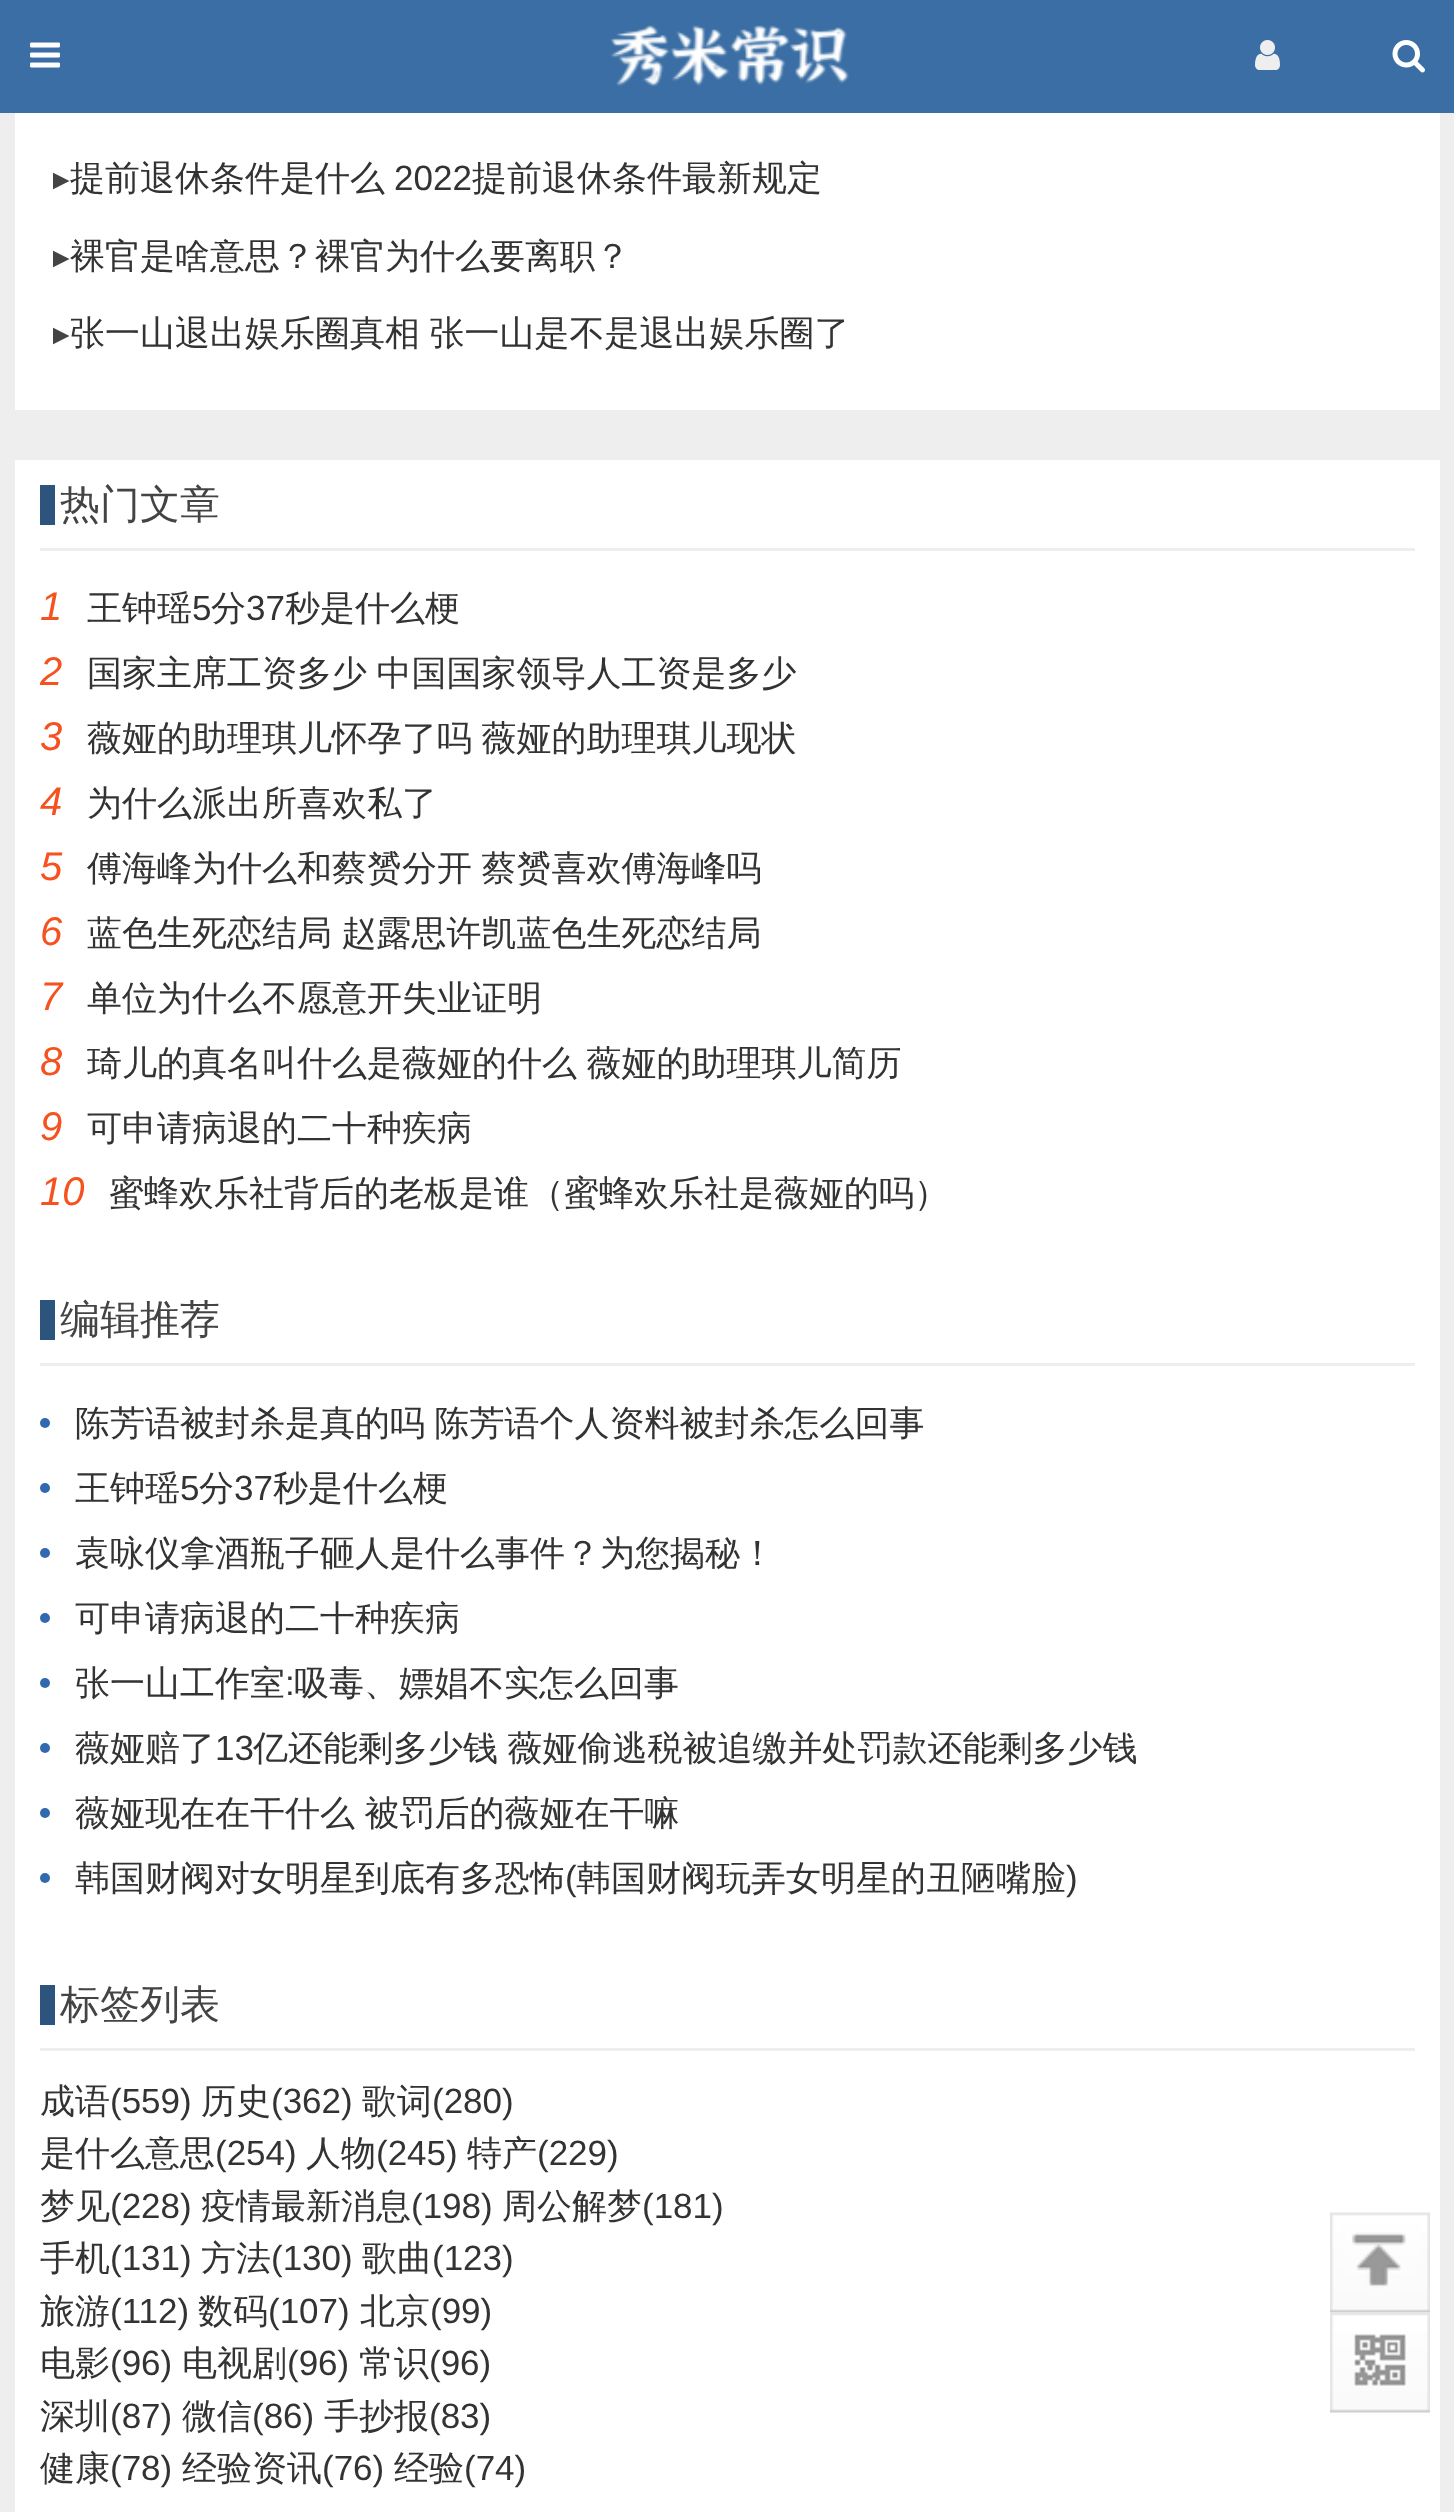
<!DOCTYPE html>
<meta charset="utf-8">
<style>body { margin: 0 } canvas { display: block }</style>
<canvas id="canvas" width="1454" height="2512"></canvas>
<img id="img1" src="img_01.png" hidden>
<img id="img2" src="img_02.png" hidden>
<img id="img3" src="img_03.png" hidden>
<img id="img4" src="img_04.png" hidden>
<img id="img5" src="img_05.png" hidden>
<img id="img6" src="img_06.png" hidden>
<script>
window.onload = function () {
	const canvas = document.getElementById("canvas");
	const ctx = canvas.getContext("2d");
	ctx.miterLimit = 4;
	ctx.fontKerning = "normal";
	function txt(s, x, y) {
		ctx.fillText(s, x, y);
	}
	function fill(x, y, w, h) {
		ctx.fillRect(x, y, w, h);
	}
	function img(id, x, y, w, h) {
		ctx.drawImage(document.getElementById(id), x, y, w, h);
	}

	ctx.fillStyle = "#EEEEEE";
	fill(0, 0, 1454, 2512);
	ctx.fillStyle = "#3A6EA4";
	fill(0, 0, 1454, 113);
	img("img1", 30, 42, 30, 26);
	img("img2", 610, 25, 239, 62);
	img("img3", 1255, 40, 25, 30);
	img("img4", 1392, 40, 33, 33);
	ctx.fillStyle = "#FFFFFF";
	fill(15, 113, 1425, 297);
	fill(15, 460, 1425, 2052);
	ctx.fillStyle = "#EEEEEE";
	fill(40, 548, 1375, 3);
	ctx.fillStyle = "#2C547C";
	fill(40, 485, 15, 40);
	ctx.fillStyle = "#EEEEEE";
	fill(40, 1363, 1375, 3);
	ctx.fillStyle = "#2C547C";
	fill(40, 1300, 15, 40);
	ctx.fillStyle = "#3169B0";
	ctx.beginPath();
	ctx.arc(45, 1423, 5, 0, Math.PI * 2);
	ctx.fill();
	ctx.beginPath();
	ctx.arc(45, 1488, 5, 0, Math.PI * 2);
	ctx.fill();
	ctx.beginPath();
	ctx.arc(45, 1553, 5, 0, Math.PI * 2);
	ctx.fill();
	ctx.beginPath();
	ctx.arc(45, 1618, 5, 0, Math.PI * 2);
	ctx.fill();
	ctx.beginPath();
	ctx.arc(45, 1683, 5, 0, Math.PI * 2);
	ctx.fill();
	ctx.beginPath();
	ctx.arc(45, 1748, 5, 0, Math.PI * 2);
	ctx.fill();
	ctx.beginPath();
	ctx.arc(45, 1813, 5, 0, Math.PI * 2);
	ctx.fill();
	ctx.beginPath();
	ctx.arc(45, 1878, 5, 0, Math.PI * 2);
	ctx.fill();
	ctx.fillStyle = "#EEEEEE";
	fill(40, 2048, 1375, 3);
	ctx.fillStyle = "#2C547C";
	fill(40, 1985, 15, 40);
	img("img5", 1330, 2212, 100, 101);
	img("img6", 1330, 2313, 100, 100);
	ctx.save();
	ctx.beginPath();
	ctx.rect(53, 153, 1075, 52);
	ctx.clip();
	ctx.font = "35px DejaVu Sans";
	ctx.fillStyle = "#444444";
	txt("▸", 52, 190);
	ctx.restore();
	ctx.font = "500 35px WenQuanYi Zen Hei";
	ctx.fillStyle = "#333333";
	txt("提前退休条件是什么", 70, 190);
	ctx.font = "35px Liberation Sans";
	txt("2022", 394, 190);
	ctx.font = "500 35px WenQuanYi Zen Hei";
	txt("提前退休条件最新规定", 472, 190);
	ctx.save();
	ctx.beginPath();
	ctx.rect(53, 230, 1075, 53);
	ctx.clip();
	ctx.font = "35px DejaVu Sans";
	ctx.fillStyle = "#444444";
	txt("▸", 52, 268);
	ctx.restore();
	txt("裸官是啥意思？裸官为什么要离职？", 70, 268);
	ctx.save();
	ctx.beginPath();
	ctx.rect(53, 308, 1075, 52);
	ctx.clip();
	ctx.font = "35px DejaVu Sans";
	ctx.fillStyle = "#444444";
	txt("▸", 52, 345);
	ctx.restore();
	ctx.wordSpacing = "-1px";
	txt("张一山退出娱乐圈真相 张一山是不是退出娱乐圈了", 70, 345);
	ctx.wordSpacing = "0px";
	ctx.font = "500 40px WenQuanYi Zen Hei";
	ctx.fillStyle = "#444444";
	txt("热门文章", 60, 518);
	ctx.font = "italic 40px Liberation Sans";
	ctx.fillStyle = "#F65220";
	txt("1", 40, 620);
	ctx.font = "500 35px WenQuanYi Zen Hei";
	ctx.fillStyle = "#333333";
	txt("王钟瑶", 87, 620);
	ctx.font = "35px Liberation Sans";
	txt("5", 192, 620);
	ctx.font = "500 35px WenQuanYi Zen Hei";
	txt("分", 211, 620);
	ctx.font = "35px Liberation Sans";
	txt("37", 246, 620);
	ctx.font = "500 35px WenQuanYi Zen Hei";
	txt("秒是什么梗", 285, 620);
	ctx.save();
	ctx.beginPath();
	ctx.rect(40, 640, 1375, 65);
	ctx.clip();
	ctx.font = "italic 40px Liberation Sans";
	ctx.fillStyle = "#F65220";
	txt("2", 40, 685);
	ctx.restore();
	ctx.wordSpacing = "-1px";
	txt("国家主席工资多少 中国国家领导人工资是多少", 87, 685);
	ctx.wordSpacing = "0px";
	ctx.font = "italic 40px Liberation Sans";
	ctx.fillStyle = "#F65220";
	txt("3", 40, 750);
	ctx.wordSpacing = "-1px";
	ctx.font = "500 35px WenQuanYi Zen Hei";
	ctx.fillStyle = "#333333";
	txt("薇娅的助理琪儿怀孕了吗 薇娅的助理琪儿现状", 87, 750);
	ctx.wordSpacing = "0px";
	ctx.font = "italic 40px Liberation Sans";
	ctx.fillStyle = "#F65220";
	txt("4", 40, 815);
	ctx.font = "500 35px WenQuanYi Zen Hei";
	ctx.fillStyle = "#333333";
	txt("为什么派出所喜欢私了", 87, 815);
	ctx.font = "italic 40px Liberation Sans";
	ctx.fillStyle = "#F65220";
	txt("5", 40, 880);
	ctx.wordSpacing = "-1px";
	ctx.font = "500 35px WenQuanYi Zen Hei";
	ctx.fillStyle = "#333333";
	txt("傅海峰为什么和蔡赟分开 蔡赟喜欢傅海峰吗", 87, 880);
	ctx.wordSpacing = "0px";
	ctx.font = "italic 40px Liberation Sans";
	ctx.fillStyle = "#F65220";
	txt("6", 40, 945);
	ctx.wordSpacing = "-1px";
	ctx.font = "500 35px WenQuanYi Zen Hei";
	ctx.fillStyle = "#333333";
	txt("蓝色生死恋结局 赵露思许凯蓝色生死恋结局", 87, 945);
	ctx.wordSpacing = "0px";
	ctx.font = "italic 40px Liberation Sans";
	ctx.fillStyle = "#F65220";
	txt("7", 40, 1010);
	ctx.font = "500 35px WenQuanYi Zen Hei";
	ctx.fillStyle = "#333333";
	txt("单位为什么不愿意开失业证明", 87, 1010);
	ctx.font = "italic 40px Liberation Sans";
	ctx.fillStyle = "#F65220";
	txt("8", 40, 1075);
	ctx.wordSpacing = "-1px";
	ctx.font = "500 35px WenQuanYi Zen Hei";
	ctx.fillStyle = "#333333";
	txt("琦儿的真名叫什么是薇娅的什么 薇娅的助理琪儿简历", 87, 1075);
	ctx.wordSpacing = "0px";
	ctx.font = "italic 40px Liberation Sans";
	ctx.fillStyle = "#F65220";
	txt("9", 40, 1140);
	ctx.font = "500 35px WenQuanYi Zen Hei";
	ctx.fillStyle = "#333333";
	txt("可申请病退的二十种疾病", 87, 1140);
	ctx.font = "italic 40px Liberation Sans";
	ctx.fillStyle = "#F65220";
	txt("10", 40, 1205);
	ctx.font = "500 35px WenQuanYi Zen Hei";
	ctx.fillStyle = "#333333";
	txt("蜜蜂欢乐社背后的老板是谁（蜜蜂欢乐社是薇娅的吗）", 109, 1205);
	ctx.font = "500 40px WenQuanYi Zen Hei";
	ctx.fillStyle = "#444444";
	txt("编辑推荐", 60, 1333);
	ctx.wordSpacing = "-1px";
	ctx.font = "500 35px WenQuanYi Zen Hei";
	ctx.fillStyle = "#333333";
	txt("陈芳语被封杀是真的吗 陈芳语个人资料被封杀怎么回事", 75, 1435);
	ctx.wordSpacing = "0px";
	txt("王钟瑶", 75, 1500);
	ctx.font = "35px Liberation Sans";
	txt("5", 180, 1500);
	ctx.font = "500 35px WenQuanYi Zen Hei";
	txt("分", 199, 1500);
	ctx.font = "35px Liberation Sans";
	txt("37", 234, 1500);
	ctx.font = "500 35px WenQuanYi Zen Hei";
	txt("秒是什么梗", 273, 1500);
	txt("袁咏仪拿酒瓶子砸人是什么事件？为您揭秘！", 75, 1565);
	txt("可申请病退的二十种疾病", 75, 1630);
	txt("张一山工作室", 75, 1695);
	ctx.font = "35px Liberation Sans";
	txt(":", 285, 1695);
	ctx.font = "500 35px WenQuanYi Zen Hei";
	txt("吸毒、嫖娼不实怎么回事", 294, 1695);
	txt("薇娅赔了", 75, 1760);
	ctx.font = "35px Liberation Sans";
	txt("13", 215, 1760);
	ctx.wordSpacing = "-1px";
	ctx.font = "500 35px WenQuanYi Zen Hei";
	txt("亿还能剩多少钱 薇娅偷逃税被追缴并处罚款还能剩多少钱", 253, 1760);
	txt("薇娅现在在干什么 被罚后的薇娅在干嘛", 75, 1825);
	ctx.wordSpacing = "0px";
	txt("韩国财阀对女明星到底有多恐怖", 75, 1890);
	ctx.font = "35px Liberation Sans";
	txt("(", 565, 1890);
	ctx.font = "500 35px WenQuanYi Zen Hei";
	txt("韩国财阀玩弄女明星的丑陋嘴脸", 576, 1890);
	ctx.font = "35px Liberation Sans";
	txt(")", 1066, 1890);
	ctx.font = "500 40px WenQuanYi Zen Hei";
	ctx.fillStyle = "#444444";
	txt("标签列表", 60, 2018);
	ctx.font = "500 35px WenQuanYi Zen Hei";
	ctx.fillStyle = "#333333";
	txt("成语", 40, 2113);
	ctx.font = "35px Liberation Sans";
	txt("(559)", 110, 2113);
	ctx.font = "500 35px WenQuanYi Zen Hei";
	txt("历史", 201, 2113);
	ctx.font = "35px Liberation Sans";
	txt("(362)", 271, 2113);
	ctx.font = "500 35px WenQuanYi Zen Hei";
	txt("歌词", 362, 2113);
	ctx.font = "35px Liberation Sans";
	txt("(280)", 432, 2113);
	ctx.font = "500 35px WenQuanYi Zen Hei";
	txt("是什么意思", 40, 2165);
	ctx.font = "35px Liberation Sans";
	txt("(254)", 215, 2165);
	ctx.font = "500 35px WenQuanYi Zen Hei";
	txt("人物", 306, 2165);
	ctx.font = "35px Liberation Sans";
	txt("(245)", 376, 2165);
	ctx.font = "500 35px WenQuanYi Zen Hei";
	txt("特产", 467, 2165);
	ctx.font = "35px Liberation Sans";
	txt("(229)", 537, 2165);
	ctx.font = "500 35px WenQuanYi Zen Hei";
	txt("梦见", 40, 2218);
	ctx.font = "35px Liberation Sans";
	txt("(228)", 110, 2218);
	ctx.font = "500 35px WenQuanYi Zen Hei";
	txt("疫情最新消息", 201, 2218);
	ctx.font = "35px Liberation Sans";
	txt("(198)", 411, 2218);
	ctx.font = "500 35px WenQuanYi Zen Hei";
	txt("周公解梦", 502, 2218);
	ctx.font = "35px Liberation Sans";
	txt("(181)", 642, 2218);
	ctx.font = "500 35px WenQuanYi Zen Hei";
	txt("手机", 40, 2270);
	ctx.font = "35px Liberation Sans";
	txt("(131)", 110, 2270);
	ctx.font = "500 35px WenQuanYi Zen Hei";
	txt("方法", 201, 2270);
	ctx.font = "35px Liberation Sans";
	txt("(130)", 271, 2270);
	ctx.font = "500 35px WenQuanYi Zen Hei";
	txt("歌曲", 362, 2270);
	ctx.font = "35px Liberation Sans";
	txt("(123)", 432, 2270);
	ctx.font = "500 35px WenQuanYi Zen Hei";
	txt("旅游", 40, 2323);
	ctx.font = "35px Liberation Sans";
	txt("(112)", 110, 2323);
	ctx.font = "500 35px WenQuanYi Zen Hei";
	txt("数码", 198, 2323);
	ctx.font = "35px Liberation Sans";
	txt("(107)", 268, 2323);
	ctx.font = "500 35px WenQuanYi Zen Hei";
	txt("北京", 360, 2323);
	ctx.font = "35px Liberation Sans";
	txt("(99)", 430, 2323);
	ctx.font = "500 35px WenQuanYi Zen Hei";
	txt("电影", 40, 2375);
	ctx.font = "35px Liberation Sans";
	txt("(96)", 110, 2375);
	ctx.font = "500 35px WenQuanYi Zen Hei";
	txt("电视剧", 182, 2375);
	ctx.font = "35px Liberation Sans";
	txt("(96)", 287, 2375);
	ctx.font = "500 35px WenQuanYi Zen Hei";
	txt("常识", 359, 2375);
	ctx.font = "35px Liberation Sans";
	txt("(96)", 429, 2375);
	ctx.font = "500 35px WenQuanYi Zen Hei";
	txt("深圳", 40, 2428);
	ctx.font = "35px Liberation Sans";
	txt("(87)", 110, 2428);
	ctx.font = "500 35px WenQuanYi Zen Hei";
	txt("微信", 182, 2428);
	ctx.font = "35px Liberation Sans";
	txt("(86)", 252, 2428);
	ctx.font = "500 35px WenQuanYi Zen Hei";
	txt("手抄报", 324, 2428);
	ctx.font = "35px Liberation Sans";
	txt("(83)", 429, 2428);
	ctx.font = "500 35px WenQuanYi Zen Hei";
	txt("健康", 40, 2480);
	ctx.font = "35px Liberation Sans";
	txt("(78)", 110, 2480);
	ctx.font = "500 35px WenQuanYi Zen Hei";
	txt("经验资讯", 182, 2480);
	ctx.font = "35px Liberation Sans";
	txt("(76)", 322, 2480);
	ctx.font = "500 35px WenQuanYi Zen Hei";
	txt("经验", 394, 2480);
	ctx.font = "35px Liberation Sans";
	txt("(74)", 464, 2480);
};
</script>
